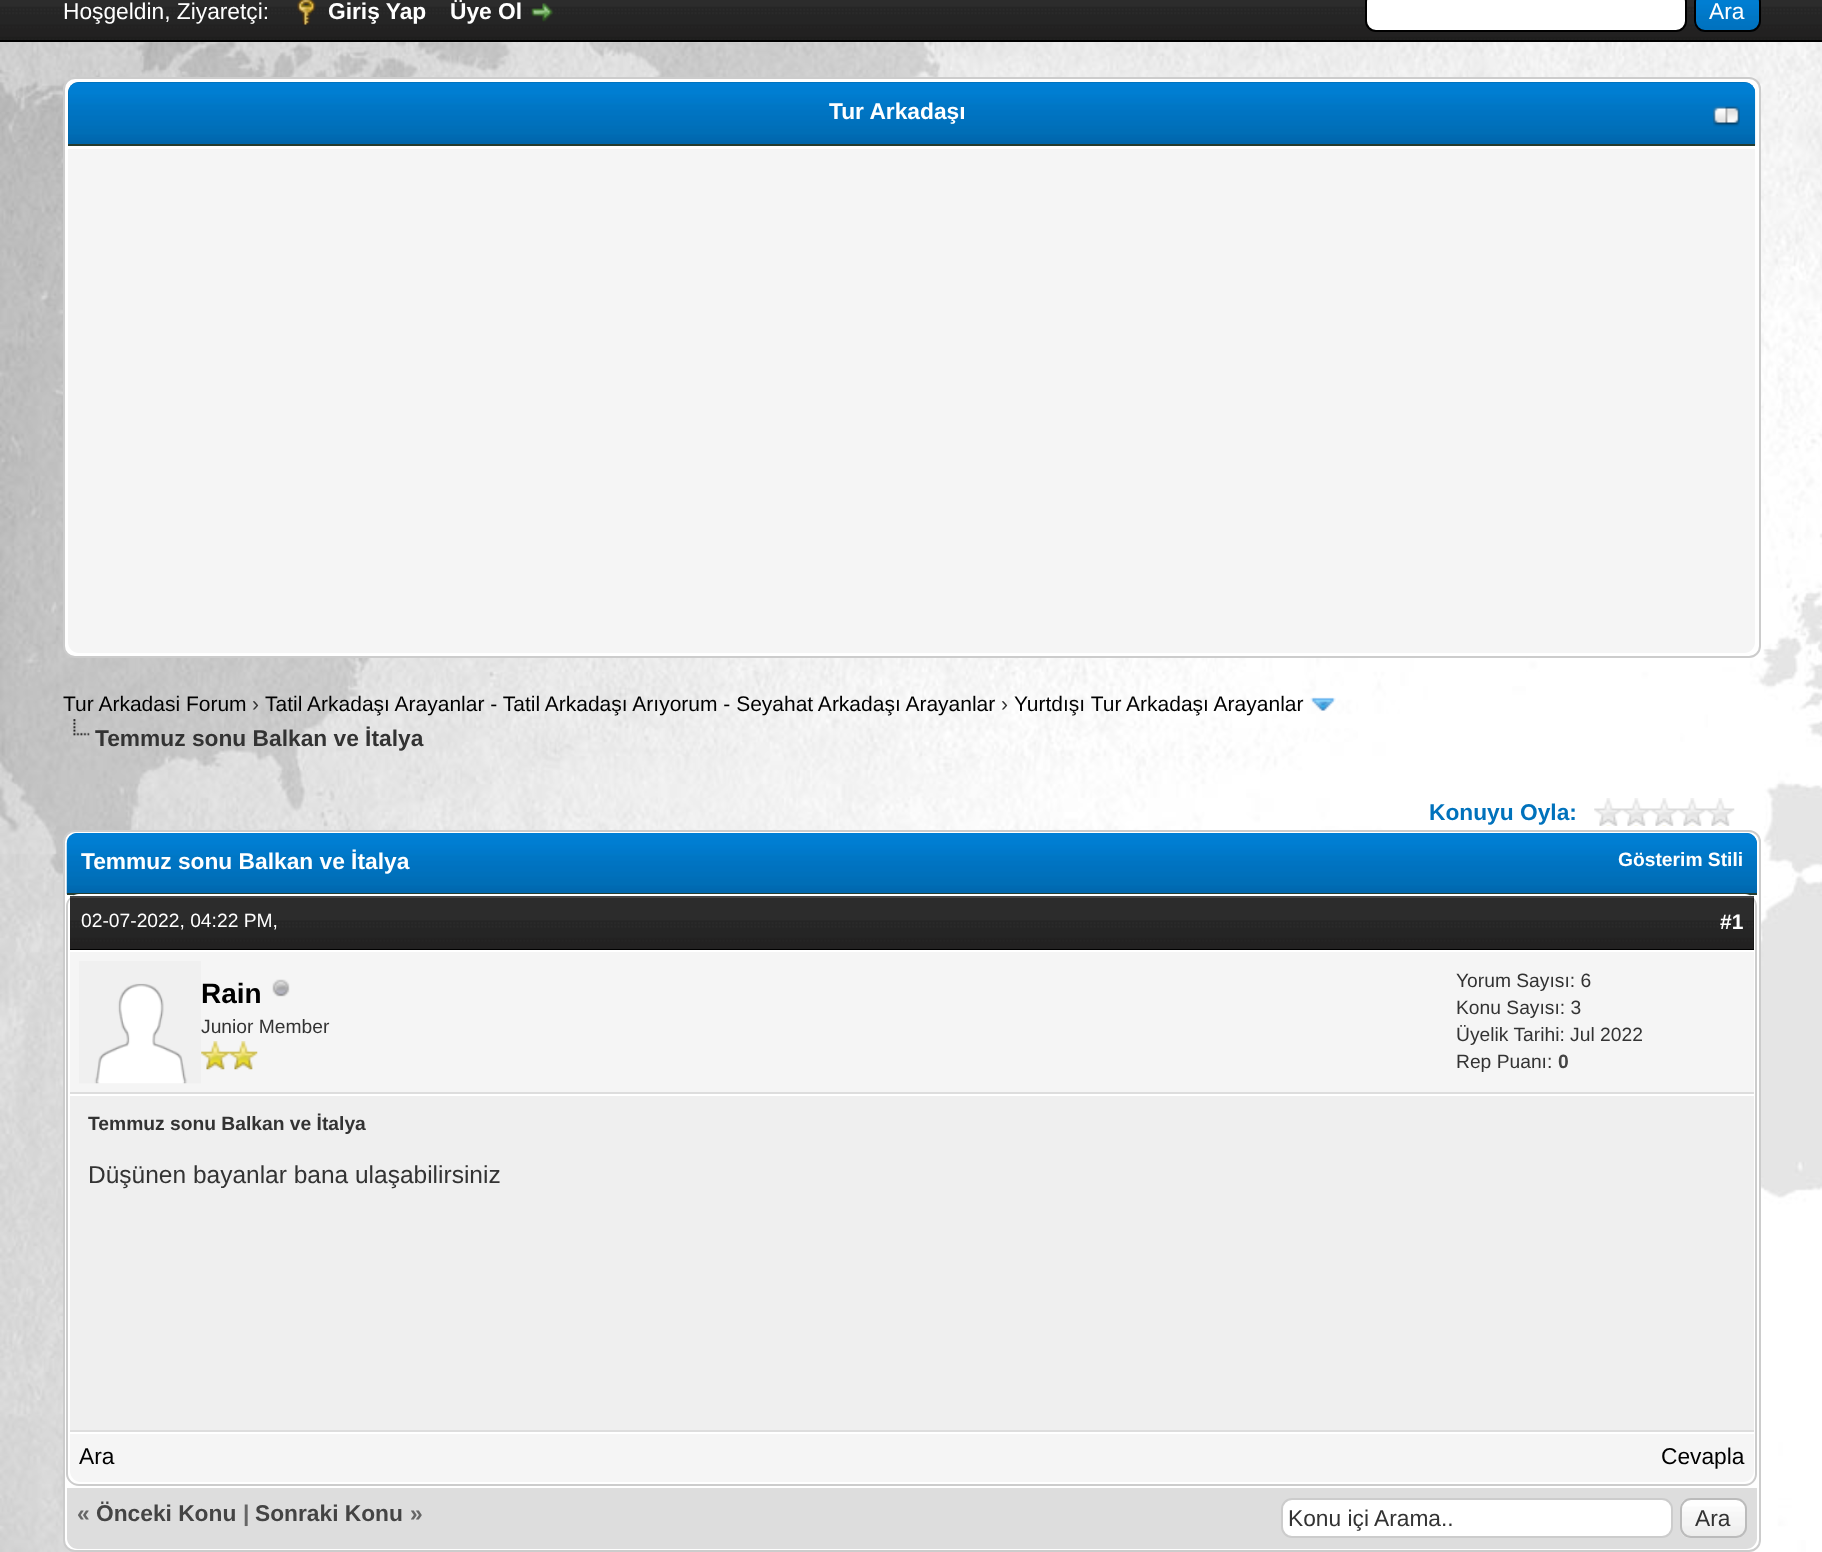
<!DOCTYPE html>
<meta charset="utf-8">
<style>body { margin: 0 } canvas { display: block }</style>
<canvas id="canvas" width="1822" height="1552"></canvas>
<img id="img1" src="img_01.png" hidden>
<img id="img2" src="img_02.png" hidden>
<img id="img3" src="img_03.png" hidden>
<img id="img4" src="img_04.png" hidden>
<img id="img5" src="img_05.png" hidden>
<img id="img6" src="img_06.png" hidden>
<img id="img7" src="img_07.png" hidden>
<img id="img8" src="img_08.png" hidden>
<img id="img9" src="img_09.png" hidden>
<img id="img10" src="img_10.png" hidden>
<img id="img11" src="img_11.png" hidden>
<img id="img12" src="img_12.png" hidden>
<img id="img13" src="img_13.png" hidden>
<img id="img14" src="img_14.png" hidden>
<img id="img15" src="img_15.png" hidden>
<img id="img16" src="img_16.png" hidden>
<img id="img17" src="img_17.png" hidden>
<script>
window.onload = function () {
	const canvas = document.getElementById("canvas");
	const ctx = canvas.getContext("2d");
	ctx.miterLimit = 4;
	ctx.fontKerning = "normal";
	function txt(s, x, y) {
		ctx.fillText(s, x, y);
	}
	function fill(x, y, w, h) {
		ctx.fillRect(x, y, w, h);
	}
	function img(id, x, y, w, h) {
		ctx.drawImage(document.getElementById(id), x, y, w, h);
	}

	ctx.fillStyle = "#FFFFFF";
	fill(0, 0, 1822, 1552);
	img("img1", 0, 0, 1822, 40);
	ctx.fillStyle = "#000000";
	fill(0, 40, 1822, 2);
	img("img2", 297, 0, 19, 25);
	img("img3", 531, 3, 23, 19);
	ctx.fillStyle = "#FFFFFF";
	ctx.beginPath();
	ctx.roundRect(1366, -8, 320, 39, 10);
	ctx.fill();
	ctx.strokeStyle = "#000000";
	ctx.lineWidth = 2;
	ctx.stroke();
	img("img4", 1694, 0, 67, 32);
	ctx.beginPath();
	ctx.roundRect(1695, -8, 65, 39, 10);
	ctx.stroke();
	img("img5", 0, 42, 1822, 1510);
	ctx.beginPath();
	ctx.roundRect(64, 78, 1696, 579, 11);
	ctx.fill();
	ctx.strokeStyle = "#CCCCCC";
	ctx.stroke();
	ctx.fillStyle = "#0066A2";
	ctx.beginPath();
	ctx.roundRect(68, 82, 1687, 63, [11, 11, 0, 0]);
	ctx.fill();
	img("img6", 68, 82, 1688, 63);
	ctx.fillStyle = "#263C30";
	fill(68, 144, 1687, 2);
	img("img7", 1713, 106, 27, 21);
	ctx.fillStyle = "#F5F5F5";
	ctx.beginPath();
	ctx.roundRect(68, 147, 1687, 506, [0, 0, 11, 11]);
	ctx.fill();
	ctx.fillStyle = "#FFFFFF";
	fill(68, 147, 1687, 2);
	img("img8", 1310, 697, 26, 14);
	img("img9", 73, 719, 17, 17);
	img("img10", 1594, 798, 141, 28);
	ctx.beginPath();
	ctx.roundRect(64, 831, 1696, 720, 11);
	ctx.fill();
	ctx.stroke();
	ctx.fillStyle = "#0066A2";
	ctx.beginPath();
	ctx.roundRect(67, 833, 1690, 61, [11, 11, 0, 0]);
	ctx.fill();
	img("img11", 66, 833, 1691, 61);
	ctx.fillStyle = "#263C30";
	fill(67, 893, 1690, 2);
	ctx.fillStyle = "#FFFFFF";
	ctx.beginPath();
	ctx.moveTo(79, 894);
	ctx.lineTo(1745, 894);
	ctx.bezierCurveTo(1751, 894, 1755, 900, 1755, 906);
	ctx.lineTo(1755, 1474);
	ctx.bezierCurveTo(1755, 1479, 1751, 1484, 1745, 1484);
	ctx.lineTo(79, 1484);
	ctx.bezierCurveTo(73, 1484, 68, 1479, 68, 1474);
	ctx.lineTo(68, 906);
	ctx.bezierCurveTo(68, 900, 73, 894, 79, 894);
	ctx.closePath();
	ctx.fill();
	ctx.fillStyle = "#CCCCCC";
	ctx.beginPath();
	ctx.moveTo(79, 894);
	ctx.lineTo(1745, 894);
	ctx.bezierCurveTo(1752, 894, 1757, 900, 1757, 906);
	ctx.lineTo(1757, 1474);
	ctx.bezierCurveTo(1757, 1480, 1752, 1486, 1745, 1486);
	ctx.lineTo(79, 1486);
	ctx.bezierCurveTo(72, 1486, 66, 1480, 66, 1474);
	ctx.lineTo(66, 906);
	ctx.bezierCurveTo(66, 900, 72, 894, 79, 894);
	ctx.closePath();
	ctx.moveTo(79, 894);
	ctx.lineTo(1745, 894);
	ctx.bezierCurveTo(1751, 894, 1755, 900, 1755, 906);
	ctx.lineTo(1755, 1474);
	ctx.bezierCurveTo(1755, 1479, 1751, 1484, 1745, 1484);
	ctx.lineTo(79, 1484);
	ctx.bezierCurveTo(73, 1484, 68, 1479, 68, 1474);
	ctx.lineTo(68, 906);
	ctx.bezierCurveTo(68, 900, 73, 894, 79, 894);
	ctx.closePath();
	ctx.fill("evenodd");
	ctx.fillStyle = "#0F0F0F";
	fill(1753, 898, 1, 51);
	img("img12", 70, 898, 1684, 51);
	ctx.fillStyle = "#444444";
	fill(70, 896, 1684, 2);
	ctx.fillStyle = "#000000";
	fill(70, 949, 1684, 1);
	ctx.fillStyle = "#F5F5F5";
	fill(70, 952, 1684, 140);
	ctx.fillStyle = "#DDDDDD";
	fill(70, 1092, 1684, 2);
	img("img13", 79, 961, 122, 123);
	img("img14", 272, 979, 18, 18);
	img("img15", 201, 1041, 29, 29);
	img("img16", 229, 1041, 29, 29);
	ctx.fillStyle = "#EFEFEF";
	fill(70, 1096, 1684, 334);
	ctx.fillStyle = "#DDDDDD";
	fill(70, 1430, 1684, 2);
	ctx.fillStyle = "#F5F5F5";
	ctx.beginPath();
	ctx.roundRect(70, 1432, 1684, 50, [0, 0, 11, 11]);
	ctx.fill();
	ctx.fillStyle = "#FFFFFF";
	fill(70, 1432, 1684, 2);
	ctx.fillStyle = "#DDDDDD";
	ctx.beginPath();
	ctx.roundRect(67, 1486, 1690, 63, [0, 0, 11, 11]);
	ctx.fill();
	ctx.fillStyle = "#FFFFFF";
	fill(67, 1486, 1690, 2);
	ctx.beginPath();
	ctx.roundRect(1282, 1499, 390, 38, 10);
	ctx.fill();
	ctx.stroke();
	img("img17", 1680, 1499, 66, 39);
	ctx.beginPath();
	ctx.roundRect(1681, 1499, 65, 38, 10);
	ctx.strokeStyle = "#BBBBBB";
	ctx.stroke();
	ctx.font = "22.75px Liberation Sans";
	txt("Hoşgeldin, Ziyaretçi:", 63, 19);
	ctx.font = "bold 22.75px Liberation Sans";
	txt("Giriş Yap", 328, 19);
	txt("Üye Ol", 450, 19);
	ctx.font = "22.75px Liberation Sans";
	txt("Ara", 1709, 19);
	ctx.font = "bold 22.75px Liberation Sans";
	txt("Tur Arkadaşı", 829, 119);
	ctx.font = "21px Liberation Sans";
	ctx.fillStyle = "#000000";
	txt("Tur Arkadasi Forum", 63, 711);
	ctx.fillStyle = "#333333";
	txt("›", 252, 711);
	ctx.fillStyle = "#000000";
	txt("Tatil Arkadaşı Arayanlar - Tatil Arkadaşı Arıyorum - Seyahat Arkadaşı Arayanlar", 265, 711);
	ctx.fillStyle = "#333333";
	txt("›", 1001, 711);
	ctx.fillStyle = "#000000";
	txt("Yurtdışı Tur Arkadaşı Arayanlar", 1014, 711);
	ctx.font = "bold 22.75px Liberation Sans";
	ctx.fillStyle = "#333333";
	txt("Temmuz sonu Balkan ve İtalya", 95, 746);
	ctx.fillStyle = "#0072BC";
	txt("Konuyu Oyla:", 1429, 820);
	ctx.fillStyle = "#FFFFFF";
	txt("Temmuz sonu Balkan ve İtalya", 81, 869);
	ctx.font = "bold 19.25px Liberation Sans";
	txt("Gösterim Stili", 1618, 866);
	ctx.font = "19.25px Liberation Sans";
	txt("02-07-2022, 04:22 PM,", 81, 927);
	ctx.font = "bold 21px Liberation Sans";
	txt("#1", 1720, 929);
	ctx.font = "bold 28px Liberation Sans";
	ctx.fillStyle = "#000000";
	txt("Rain", 201, 1003);
	ctx.font = "19.25px Liberation Sans";
	ctx.fillStyle = "#333333";
	txt("Junior Member", 201, 1033);
	txt("Yorum Sayısı: 6", 1456, 987);
	txt("Konu Sayısı: 3", 1456, 1014);
	txt("Üyelik Tarihi: Jul 2022", 1456, 1041);
	txt("Rep Puanı:", 1456, 1068);
	ctx.font = "bold 19.25px Liberation Sans";
	ctx.fillStyle = "#444444";
	txt("0", 1558, 1068);
	ctx.fillStyle = "#333333";
	txt("Temmuz sonu Balkan ve İtalya", 88, 1130);
	ctx.font = "24.5px Liberation Sans";
	txt("Düşünen bayanlar bana ulaşabilirsiniz", 88, 1183);
	ctx.font = "22.75px Liberation Sans";
	ctx.fillStyle = "#000000";
	txt("Ara", 79, 1464);
	txt("Cevapla", 1661, 1464);
	ctx.font = "bold 22.75px Liberation Sans";
	ctx.fillStyle = "#666666";
	txt("«", 77, 1521);
	ctx.fillStyle = "#444444";
	txt("Önceki Konu", 96, 1521);
	ctx.fillStyle = "#666666";
	txt("|", 243, 1521);
	ctx.fillStyle = "#444444";
	txt("Sonraki Konu", 255, 1521);
	ctx.fillStyle = "#666666";
	txt("»", 410, 1521);
	ctx.font = "22.75px Liberation Sans";
	ctx.fillStyle = "#333333";
	txt("Konu içi Arama..", 1288, 1526);
	txt("Ara", 1695, 1526);
};
</script>
